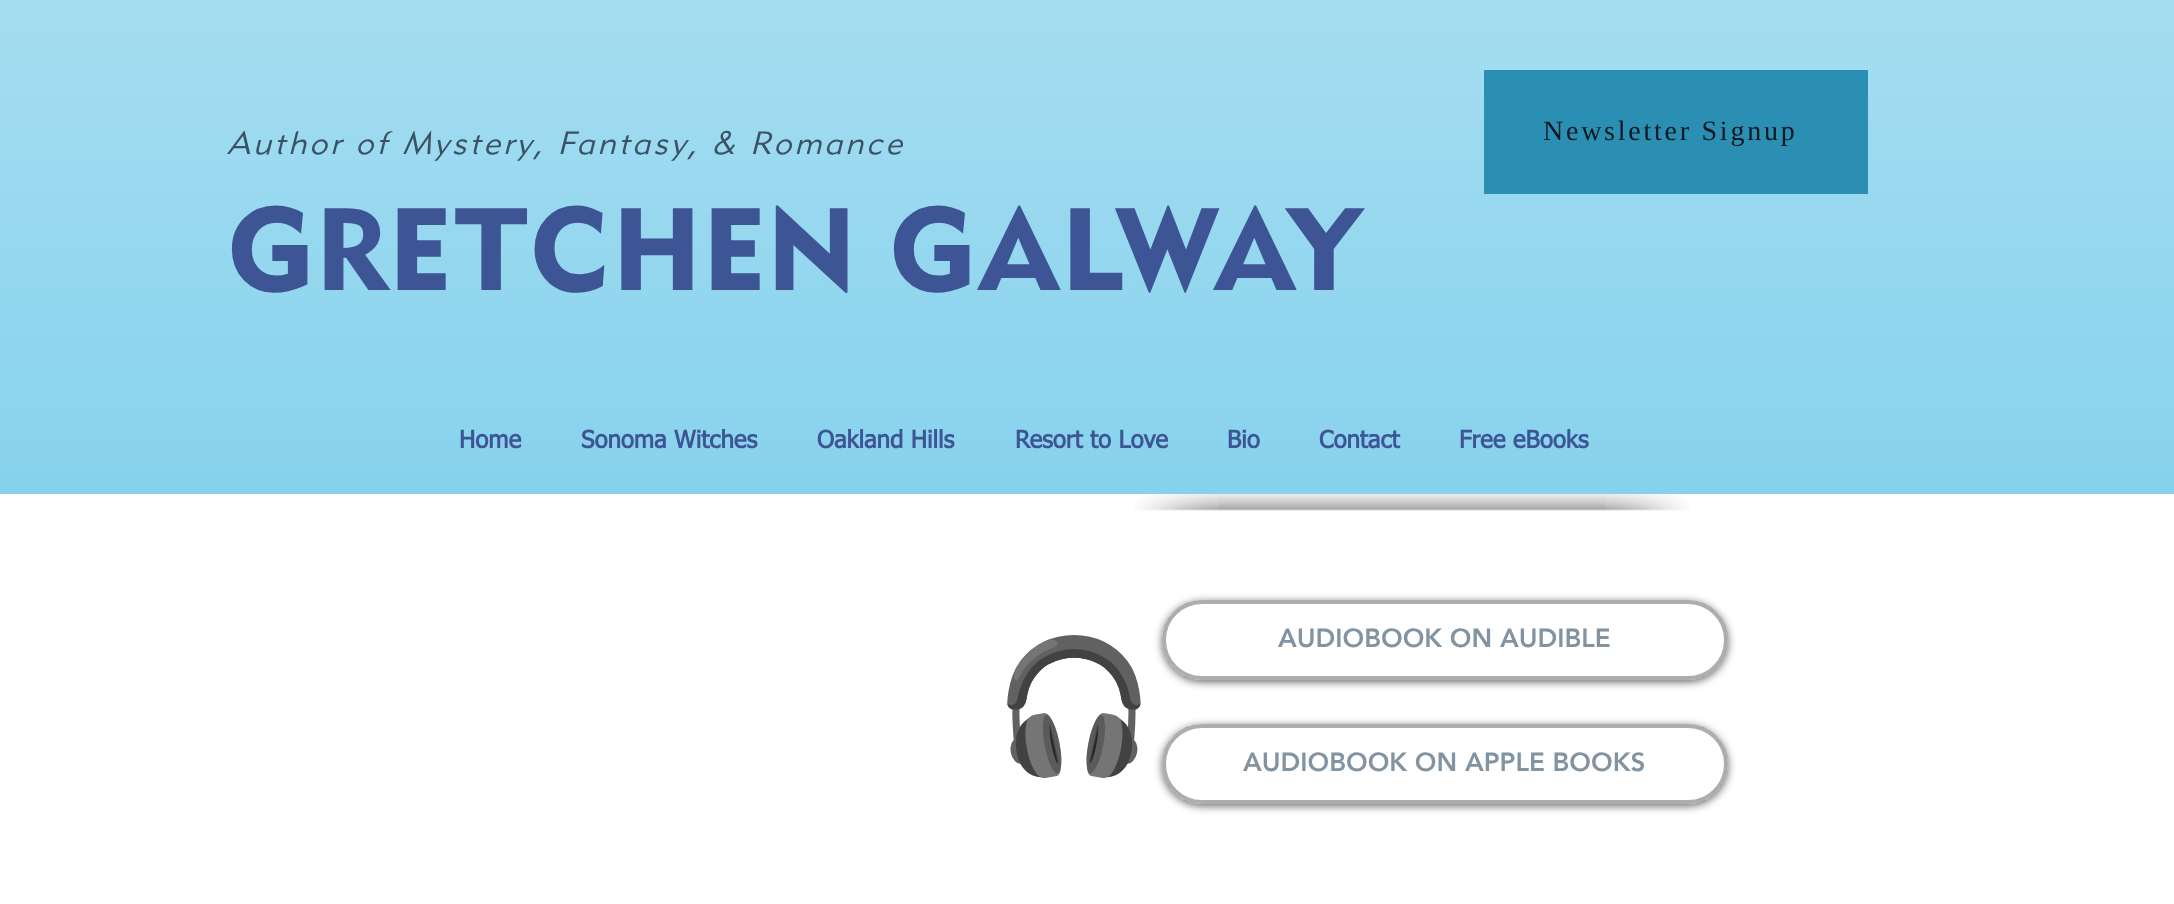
<!DOCTYPE html>
<meta charset="utf-8">
<style>body { margin: 0 } canvas { display: block }</style>
<canvas id="canvas" width="2174" height="904"></canvas>
<img id="img1" src="img_01.png" hidden>
<img id="img2" src="img_02.png" hidden>
<img id="img3" src="img_03.png" hidden>
<img id="img4" src="img_04.png" hidden>
<script>
window.onload = function () {
	const canvas = document.getElementById("canvas");
	const ctx = canvas.getContext("2d");
	ctx.miterLimit = 4;
	ctx.fontKerning = "normal";
	function txt(s, x, y) {
		ctx.fillText(s, x, y);
	}
	function fill(x, y, w, h) {
		ctx.fillRect(x, y, w, h);
	}
	function img(id, x, y, w, h) {
		ctx.drawImage(document.getElementById(id), x, y, w, h);
	}

	ctx.fillStyle = "#FFFFFF";
	fill(0, 0, 2174, 904);
	ctx.fillStyle = "#86D2ED";
	fill(0, 0, 2174, 494);
	img("img1", 0, 0, 2174, 471);
	ctx.fillStyle = "#2B8FB3";
	fill(1484, 70, 384, 124);
	img("img2", 1218, 494, 388, 17);
	img("img3", 1135, 494, 83, 17);
	img("img4", 1606, 494, 83, 17);
	ctx.save();
	ctx.beginPath();
	ctx.moveTo(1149, 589);
	ctx.lineTo(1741, 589);
	ctx.lineTo(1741, 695);
	ctx.lineTo(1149, 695);
	ctx.closePath();
	ctx.moveTo(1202, 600);
	ctx.lineTo(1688, 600);
	ctx.bezierCurveTo(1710, 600, 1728, 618, 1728, 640);
	ctx.bezierCurveTo(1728, 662, 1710, 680, 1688, 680);
	ctx.lineTo(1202, 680);
	ctx.bezierCurveTo(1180, 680, 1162, 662, 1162, 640);
	ctx.bezierCurveTo(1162, 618, 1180, 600, 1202, 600);
	ctx.closePath();
	ctx.clip("evenodd");
	ctx.fillStyle = "rgba(0, 0, 0, 0.6)";
	ctx.filter = "blur(4px)";
	ctx.beginPath();
	ctx.roundRect(1162, 602, 566, 80, 40);
	ctx.fill();
	ctx.filter = "none";
	ctx.restore();
	ctx.beginPath();
	ctx.roundRect(1164, 602, 562, 76, 38);
	ctx.strokeStyle = "rgba(50, 50, 50, 0.4)";
	ctx.lineWidth = 4;
	ctx.stroke();
	ctx.save();
	ctx.beginPath();
	ctx.moveTo(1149, 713);
	ctx.lineTo(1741, 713);
	ctx.lineTo(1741, 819);
	ctx.lineTo(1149, 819);
	ctx.closePath();
	ctx.moveTo(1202, 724);
	ctx.lineTo(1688, 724);
	ctx.bezierCurveTo(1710, 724, 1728, 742, 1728, 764);
	ctx.bezierCurveTo(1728, 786, 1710, 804, 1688, 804);
	ctx.lineTo(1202, 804);
	ctx.bezierCurveTo(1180, 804, 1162, 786, 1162, 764);
	ctx.bezierCurveTo(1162, 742, 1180, 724, 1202, 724);
	ctx.closePath();
	ctx.clip("evenodd");
	ctx.fillStyle = "rgba(0, 0, 0, 0.6)";
	ctx.filter = "blur(4px)";
	ctx.beginPath();
	ctx.roundRect(1162, 726, 566, 80, 40);
	ctx.fill();
	ctx.filter = "none";
	ctx.restore();
	ctx.beginPath();
	ctx.roundRect(1164, 726, 562, 76, 38);
	ctx.stroke();
	ctx.letterSpacing = "3.2px";
	ctx.font = "italic 300 32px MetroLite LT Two";
	ctx.fillStyle = "#395264";
	txt("Author of Mystery, Fantasy, & Romance", 227, 154);
	ctx.letterSpacing = "2.75px";
	ctx.font = "28px Liberation Serif";
	ctx.fillStyle = "#0E1821";
	txt("Newsletter Signup", 1543, 140);
	ctx.letterSpacing = "0px";
	ctx.font = "900 116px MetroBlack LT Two";
	ctx.fillStyle = "#3D5495";
	txt("GRETCHEN GALWAY", 227, 290);
	ctx.font = "bold 24px tahoma";
	txt("Home", 459, 448);
	txt("Sonoma Witches", 581, 448);
	txt("Oakland Hills", 817, 448);
	txt("Resort to Love", 1015, 448);
	txt("Bio", 1227, 448);
	txt("Contact", 1319, 448);
	txt("Free eBooks", 1459, 448);
	ctx.font = "130px Noto Color Emoji";
	ctx.fillStyle = "#292929";
	txt("🎧", 993, 751);
	ctx.font = "900 26px 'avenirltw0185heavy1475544'";
	ctx.fillStyle = "#8293A1";
	txt("AUDIOBOOK ON AUDIBLE", 1278, 647);
	txt("AUDIOBOOK ON APPLE BOOKS", 1243, 771);
};
</script>
